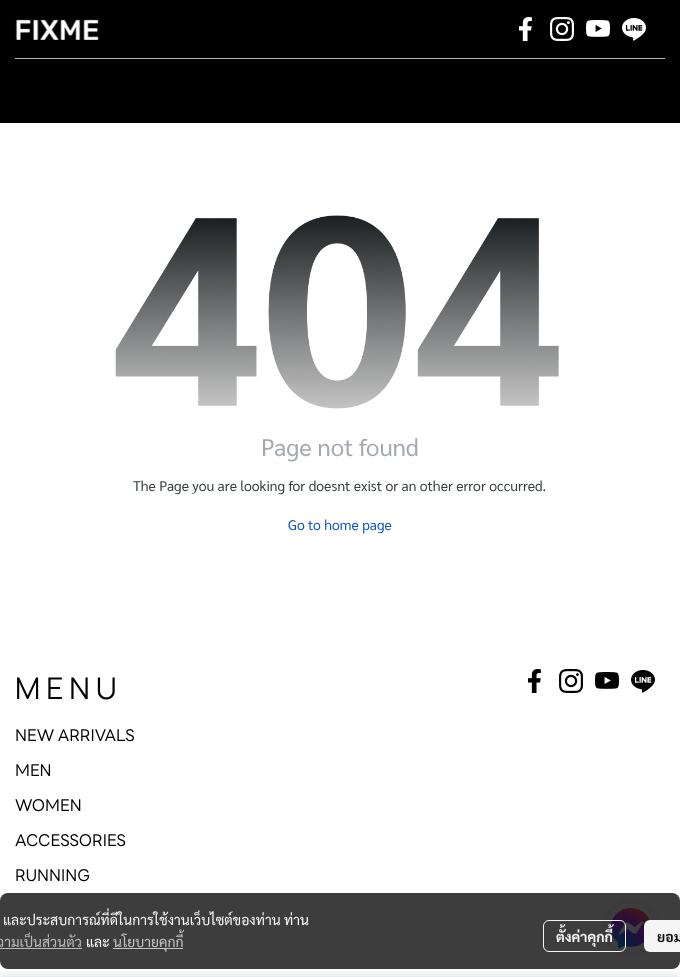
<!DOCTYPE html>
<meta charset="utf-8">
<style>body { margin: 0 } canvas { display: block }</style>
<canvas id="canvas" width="680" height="977"></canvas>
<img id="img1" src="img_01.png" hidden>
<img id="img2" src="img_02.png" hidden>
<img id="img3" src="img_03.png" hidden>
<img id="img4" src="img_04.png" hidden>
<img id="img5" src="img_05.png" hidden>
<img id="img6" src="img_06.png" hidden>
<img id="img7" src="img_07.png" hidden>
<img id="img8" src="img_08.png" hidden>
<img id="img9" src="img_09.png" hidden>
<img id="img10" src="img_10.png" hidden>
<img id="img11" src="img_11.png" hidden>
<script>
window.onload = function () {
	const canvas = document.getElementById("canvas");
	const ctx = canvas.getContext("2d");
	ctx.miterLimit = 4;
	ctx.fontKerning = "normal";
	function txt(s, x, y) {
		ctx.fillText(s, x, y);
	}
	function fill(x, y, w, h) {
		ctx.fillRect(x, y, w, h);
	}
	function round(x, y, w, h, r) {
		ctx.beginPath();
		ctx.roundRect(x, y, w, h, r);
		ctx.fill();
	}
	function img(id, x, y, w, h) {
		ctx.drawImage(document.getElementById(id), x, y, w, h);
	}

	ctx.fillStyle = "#FFFFFF";
	fill(0, 0, 680, 977);
	ctx.fillStyle = "#000000";
	fill(0, 0, 680, 123);
	img("img1", 15, 19, 84, 21);
	img("img2", 519, 17, 13, 24);
	img("img3", 550, 17, 24, 24);
	img("img4", 586, 20, 24, 17);
	img("img5", 622, 18, 24, 23);
	ctx.fillStyle = "#B7B7B7";
	fill(15, 58, 650, 1);
	img("img6", 115, 215, 444, 194);
	ctx.fillStyle = "rgba(0, 0, 0, 0.14)";
	ctx.filter = "blur(3.5px)";
	ctx.beginPath();
	ctx.roundRect(606, 903, 50, 50, 25);
	ctx.fill();
	ctx.filter = "none";
	ctx.fillStyle = "#FFFFFF";
	ctx.beginPath();
	ctx.arc(631, 928, 25, 0, Math.PI * 2);
	ctx.fill();
	img("img7", 611, 908, 40, 40);
	img("img8", 528, 669, 13, 24);
	img("img9", 559, 669, 24, 24);
	img("img10", 595, 672, 24, 17);
	img("img11", 631, 670, 24, 23);
	ctx.fillStyle = "rgba(0, 53, 74, 0.15)";
	ctx.filter = "blur(5px)";
	ctx.beginPath();
	ctx.rect(0, 975, 680, 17);
	ctx.fill();
	ctx.filter = "none";
	ctx.fillStyle = "rgba(0, 0, 0, 0.76)";
	round(0, 893, 680, 76, 8);
	ctx.fillStyle = "rgba(194, 194, 194, 0.95)";
	fill(0, 948, 82, 1);
	ctx.fillStyle = "#C5C5C5";
	fill(113, 948, 70, 1);
	ctx.beginPath();
	ctx.roundRect(543.5, 920.5, 82, 31, 5.5);
	ctx.strokeStyle = "rgba(255, 255, 255, 0.95)";
	ctx.stroke();
	ctx.fillStyle = "rgba(255, 255, 255, 0.95)";
	round(644, 920, 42, 32, 6);
	ctx.font = "24px Sarabun";
	ctx.fillStyle = "#A4A9AF";
	txt("Page not found", 261, 456);
	ctx.font = "14px Sarabun";
	ctx.fillStyle = "#373E44";
	txt("The Page you are looking for doesnt exist or an other error occurred.", 133, 491);
	ctx.fillStyle = "#1155CC";
	txt("Go to home page", 288, 530);
	ctx.font = "200 30px Manrope";
	ctx.fillStyle = "#000000";
	txt("M E N U", 15, 699);
	ctx.font = "16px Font";
	txt("NEW ARRIVALS", 15, 741);
	txt("MEN", 15, 776);
	txt("WOMEN", 15, 811);
	txt("ACCESSORIES", 15, 846);
	txt("RUNNING", 15, 881);
	ctx.font = "14px Sarabun";
	ctx.fillStyle = "#F5F5F5";
	txt("และประสบการณ์ที่ดีในการใช้งานเว็บไซต์ของท่าน", 3, 925);
	ctx.fillStyle = "#FFFFFF";
	txt("ท่าน", 284, 925);
	ctx.fillStyle = "#BBBBBB";
	txt("วามเป็นส่วนตัว", -3, 947);
	ctx.fillStyle = "#FFFFFF";
	txt("และ", 86, 947);
	ctx.fillStyle = "#C5C5C5";
	txt("นโยบายคุกกี้", 113, 947);
	ctx.font = "bold 14px Sarabun";
	ctx.fillStyle = "#F5F5F5";
	txt("ตั้งค่าคุกกี้", 556, 942);
	ctx.fillStyle = "#0C0C0C";
	txt("ยอม", 657, 942);
};
</script>
